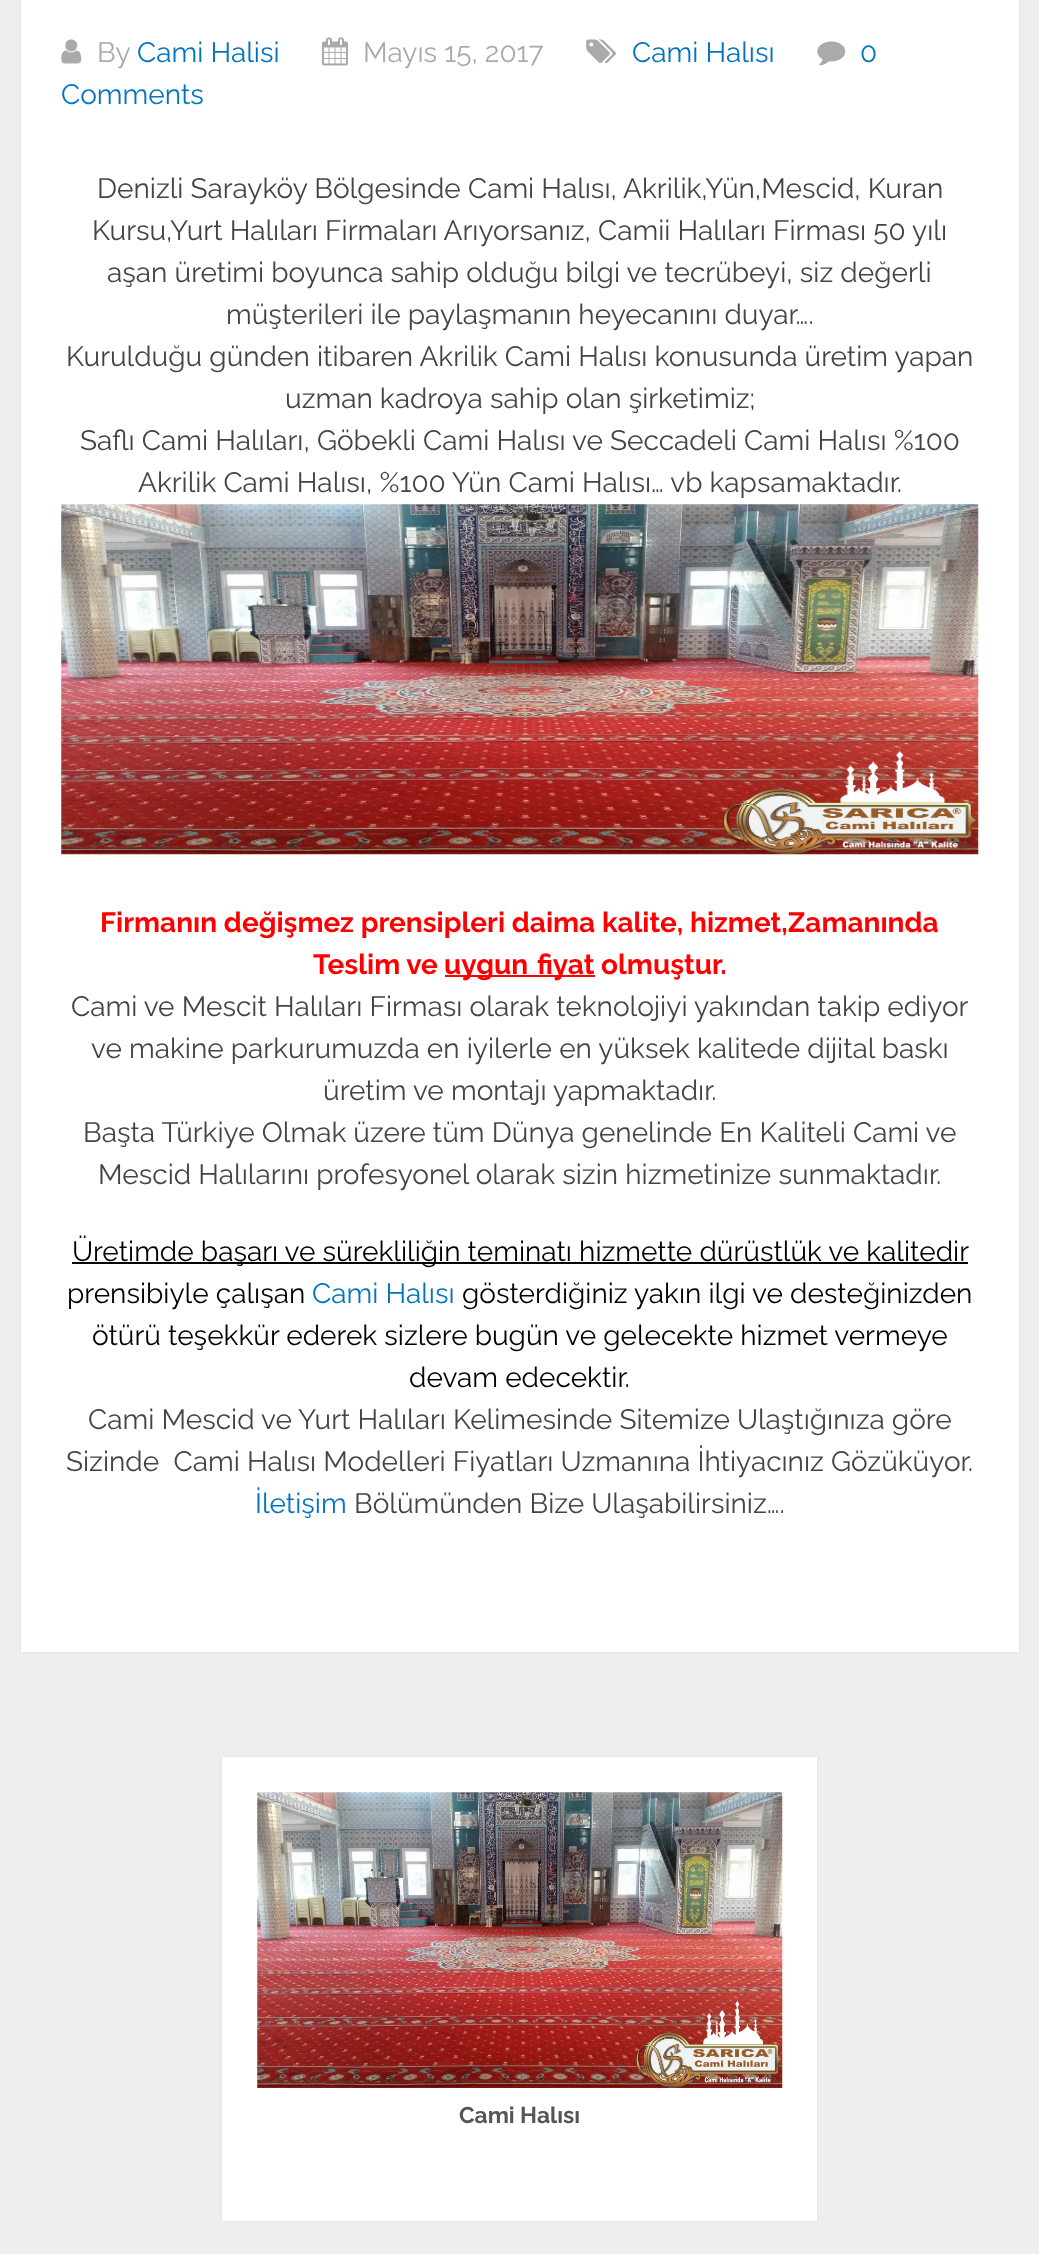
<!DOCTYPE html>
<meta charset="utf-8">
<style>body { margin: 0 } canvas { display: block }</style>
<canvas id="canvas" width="1039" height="2254"></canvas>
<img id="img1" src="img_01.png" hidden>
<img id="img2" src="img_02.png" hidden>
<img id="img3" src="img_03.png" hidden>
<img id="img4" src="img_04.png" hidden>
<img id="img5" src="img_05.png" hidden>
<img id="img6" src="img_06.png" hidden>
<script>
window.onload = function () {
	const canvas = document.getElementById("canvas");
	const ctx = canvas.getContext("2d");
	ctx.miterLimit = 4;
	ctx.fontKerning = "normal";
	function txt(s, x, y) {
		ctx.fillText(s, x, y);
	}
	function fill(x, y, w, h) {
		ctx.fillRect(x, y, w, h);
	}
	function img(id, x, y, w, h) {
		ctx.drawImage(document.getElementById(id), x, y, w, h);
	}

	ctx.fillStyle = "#EEEEEE";
	fill(0, 0, 1039, 2254);
	ctx.fillStyle = "rgba(50, 50, 50, 0.1)";
	ctx.filter = "blur(1px)";
	ctx.beginPath();
	ctx.rect(21, -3, 998, 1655);
	ctx.fill();
	ctx.filter = "none";
	ctx.fillStyle = "#FFFFFF";
	fill(21, 0, 998, 1652);
	img("img1", 61, 39, 21, 25);
	img("img2", 322, 37, 26, 29);
	img("img3", 586, 39, 30, 25);
	img("img4", 817, 41, 29, 25);
	img("img5", 61, 504, 918, 351);
	ctx.fillStyle = "#FF0000";
	fill(445, 975, 150, 2);
	ctx.fillStyle = "#000000";
	fill(72, 1262, 896, 2);
	ctx.fillStyle = "rgba(50, 50, 50, 0.1)";
	ctx.filter = "blur(1px)";
	ctx.beginPath();
	ctx.rect(222, 1757, 595, 464);
	ctx.fill();
	ctx.filter = "none";
	ctx.fillStyle = "#FFFFFF";
	fill(222, 1757, 595, 464);
	img("img6", 257, 1792, 526, 296);
	ctx.font = "28px Raleway";
	ctx.fillStyle = "#AAAAAA";
	txt("By", 97, 62);
	ctx.fillStyle = "#0274BE";
	txt("Cami Halisi", 137, 62);
	ctx.fillStyle = "#AAAAAA";
	txt("Mayıs 15, 2017", 363, 62);
	ctx.fillStyle = "#0274BE";
	txt("Cami Halısı", 632, 62);
	txt("0", 860, 62);
	txt("Comments", 61, 104);
	ctx.fillStyle = "#444444";
	txt("Denizli Sarayköy Bölgesinde Cami Halısı, Akrilik,Yün,Mescid, Kuran", 97, 198);
	txt("Kursu,Yurt Halıları Firmaları Arıyorsanız, Camii Halıları Firması 50 yılı", 92, 240);
	txt("aşan üretimi boyunca sahip olduğu bilgi ve tecrübeyi, siz değerli", 107, 282);
	txt("müşterileri ile paylaşmanın heyecanını duyar….", 226, 324);
	txt("Kurulduğu günden itibaren Akrilik Cami Halısı konusunda üretim yapan", 66, 366);
	txt("uzman kadroya sahip olan şirketimiz;", 285, 408);
	txt("Saflı Cami Halıları, Göbekli Cami Halısı ve Seccadeli Cami Halısı %100", 80, 450);
	txt("Akrilik Cami Halısı, %100 Yün Cami Halısı… vb kapsamaktadır.", 138, 492);
	ctx.font = "bold 28px Raleway";
	ctx.fillStyle = "#FF0000";
	txt("Firmanın değişmez prensipleri daima kalite, hizmet,Zamanında", 100, 932);
	txt("Teslim ve", 313, 974);
	ctx.wordSpacing = "2px";
	txt("uygun fiyat", 444, 974);
	ctx.wordSpacing = "0px";
	txt("olmuştur.", 601, 974);
	ctx.font = "28px Raleway";
	ctx.fillStyle = "#444444";
	txt("Cami ve Mescit Halıları Firması olarak teknolojiyi yakından takip ediyor", 71, 1016);
	txt("ve makine parkurumuzda en iyilerle en yüksek kalitede dijital baskı", 91, 1058);
	txt("üretim ve montajı yapmaktadır.", 323, 1100);
	txt("Başta Türkiye Olmak üzere tüm Dünya genelinde En Kaliteli Cami ve", 83, 1142);
	txt("Mescid Halılarını profesyonel olarak sizin hizmetinize sunmaktadır.", 98, 1184);
	ctx.fillStyle = "#000000";
	txt("Üretimde başarı ve sürekliliğin teminatı hizmette dürüstlük ve kalitedir", 72, 1261);
	txt("prensibiyle çalışan", 67, 1303);
	ctx.fillStyle = "#0274BE";
	txt("Cami Halısı", 312, 1303);
	ctx.fillStyle = "#000000";
	txt("gösterdiğiniz yakın ilgi ve desteğinizden", 462, 1303);
	txt("ötürü teşekkür ederek sizlere bugün ve gelecekte hizmet vermeye", 92, 1345);
	txt("devam edecektir.", 409, 1387);
	ctx.fillStyle = "#444444";
	txt("Cami Mescid ve Yurt Halıları Kelimesinde Sitemize Ulaştığınıza göre", 88, 1429);
	txt("Sizinde  Cami Halısı Modelleri Fiyatları Uzmanına İhtiyacınız Gözüküyor.", 66, 1471);
	ctx.fillStyle = "#0274BE";
	txt("İletişim", 255, 1513);
	ctx.fillStyle = "#444444";
	txt("Bölümünden Bize Ulaşabilirsiniz….", 354, 1513);
	ctx.font = "bold 22.75px Raleway";
	ctx.fillStyle = "#555555";
	txt("Cami Halısı", 459, 2123);
};
</script>
